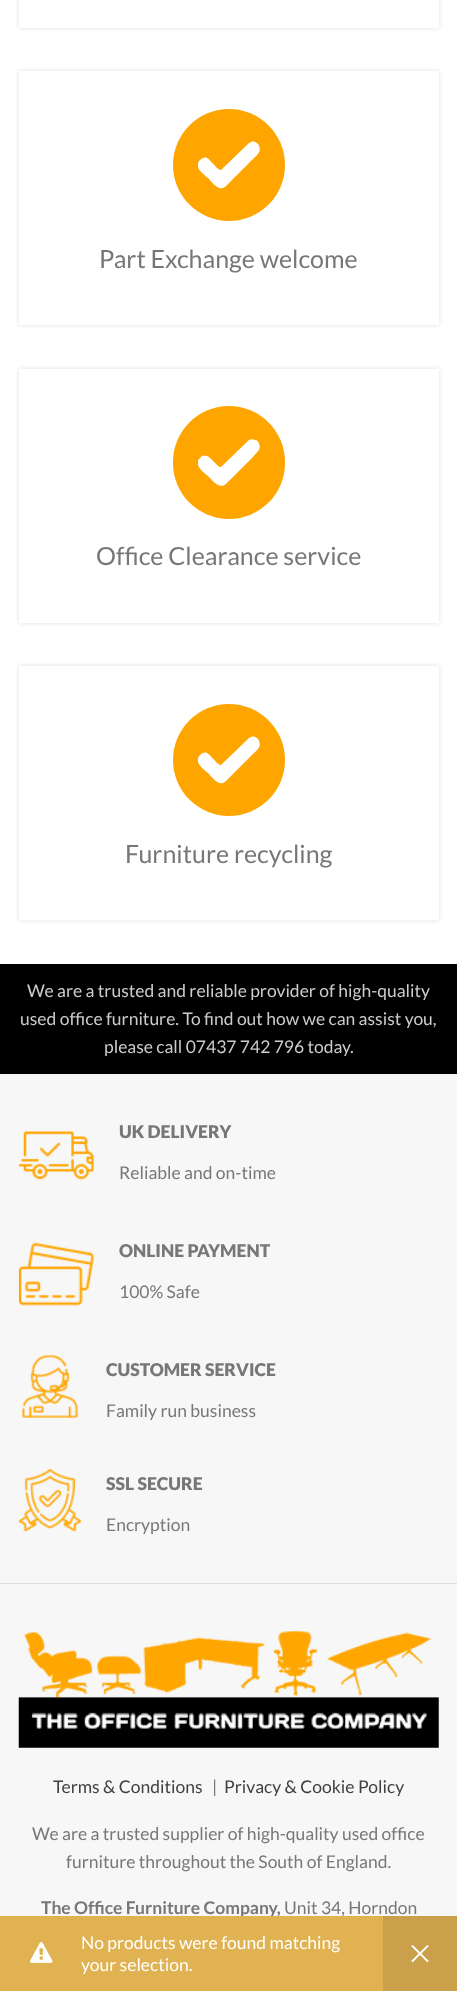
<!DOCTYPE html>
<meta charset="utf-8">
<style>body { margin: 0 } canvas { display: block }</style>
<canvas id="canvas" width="457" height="1991"></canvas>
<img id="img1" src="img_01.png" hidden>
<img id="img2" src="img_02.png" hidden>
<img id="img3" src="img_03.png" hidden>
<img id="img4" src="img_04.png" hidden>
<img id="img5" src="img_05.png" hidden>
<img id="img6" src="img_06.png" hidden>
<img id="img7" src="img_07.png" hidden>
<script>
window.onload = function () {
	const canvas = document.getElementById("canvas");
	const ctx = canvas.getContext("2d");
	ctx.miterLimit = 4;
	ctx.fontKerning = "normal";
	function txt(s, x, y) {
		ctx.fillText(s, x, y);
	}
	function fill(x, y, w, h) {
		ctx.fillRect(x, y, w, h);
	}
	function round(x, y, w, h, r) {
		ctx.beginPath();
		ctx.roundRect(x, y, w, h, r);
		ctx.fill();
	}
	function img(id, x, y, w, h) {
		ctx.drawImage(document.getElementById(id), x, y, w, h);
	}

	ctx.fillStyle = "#FFFFFF";
	fill(0, 0, 457, 1991);
	ctx.fillStyle = "rgba(0, 0, 0, 0.12)";
	ctx.filter = "blur(2.5px)";
	ctx.beginPath();
	ctx.rect(19, -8, 420, 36);
	ctx.fill();
	ctx.filter = "none";
	ctx.fillStyle = "#FFFFFF";
	fill(19, 0, 420, 28);
	ctx.fillStyle = "rgba(0, 0, 0, 0.12)";
	ctx.filter = "blur(2.5px)";
	ctx.beginPath();
	ctx.rect(19, 71, 420, 254);
	ctx.fill();
	ctx.filter = "none";
	ctx.fillStyle = "#FFFFFF";
	fill(19, 71, 420, 254);
	ctx.fillStyle = "#FFA500";
	ctx.beginPath();
	ctx.arc(229, 165, 56, 0, Math.PI * 2);
	ctx.fill();
	ctx.save();
	ctx.beginPath();
	ctx.rect(198, 134, 62, 62);
	ctx.clip();
	ctx.fillStyle = "#FFFFFF";
	ctx.beginPath();
	ctx.moveTo(226, 186);
	ctx.bezierCurveTo(219, 193, 212, 182, 208, 178);
	ctx.bezierCurveTo(203, 174, 193, 167, 200, 160);
	ctx.bezierCurveTo(202, 158, 205, 157, 207, 158);
	ctx.bezierCurveTo(211, 160, 218, 171, 221, 170);
	ctx.lineTo(249, 143);
	ctx.bezierCurveTo(251, 142, 253, 141, 255, 142);
	ctx.bezierCurveTo(257, 143, 259, 144, 259, 146);
	ctx.bezierCurveTo(262, 152, 256, 156, 253, 159);
	ctx.closePath();
	ctx.fill();
	ctx.restore();
	ctx.fillStyle = "rgba(0, 0, 0, 0.12)";
	ctx.filter = "blur(2.5px)";
	ctx.beginPath();
	ctx.rect(19, 369, 420, 254);
	ctx.fill();
	ctx.filter = "none";
	ctx.fillStyle = "#FFFFFF";
	fill(19, 369, 420, 254);
	ctx.fillStyle = "#FFA500";
	round(173, 406, 112, 113, 56);
	ctx.save();
	ctx.beginPath();
	ctx.rect(198, 431, 62, 63);
	ctx.clip();
	ctx.fillStyle = "#FFFFFF";
	ctx.beginPath();
	ctx.moveTo(226, 484);
	ctx.bezierCurveTo(219, 490, 212, 480, 208, 476);
	ctx.bezierCurveTo(203, 472, 193, 464, 200, 458);
	ctx.bezierCurveTo(202, 455, 205, 455, 207, 456);
	ctx.bezierCurveTo(211, 457, 218, 468, 221, 467);
	ctx.lineTo(249, 440);
	ctx.bezierCurveTo(251, 439, 253, 439, 255, 440);
	ctx.bezierCurveTo(257, 440, 259, 442, 259, 444);
	ctx.bezierCurveTo(262, 449, 256, 453, 253, 457);
	ctx.closePath();
	ctx.fill();
	ctx.restore();
	ctx.fillStyle = "rgba(0, 0, 0, 0.12)";
	ctx.filter = "blur(2.5px)";
	ctx.beginPath();
	ctx.rect(19, 666, 420, 254);
	ctx.fill();
	ctx.filter = "none";
	ctx.fillStyle = "#FFFFFF";
	fill(19, 666, 420, 254);
	ctx.fillStyle = "#FFA500";
	ctx.beginPath();
	ctx.arc(229, 760, 56, 0, Math.PI * 2);
	ctx.fill();
	ctx.save();
	ctx.beginPath();
	ctx.rect(198, 729, 62, 62);
	ctx.clip();
	ctx.fillStyle = "#FFFFFF";
	ctx.beginPath();
	ctx.moveTo(226, 781);
	ctx.bezierCurveTo(219, 788, 212, 777, 208, 773);
	ctx.bezierCurveTo(203, 769, 193, 762, 200, 755);
	ctx.bezierCurveTo(202, 753, 205, 752, 207, 753);
	ctx.bezierCurveTo(211, 755, 218, 766, 221, 765);
	ctx.lineTo(249, 738);
	ctx.bezierCurveTo(251, 737, 253, 736, 255, 737);
	ctx.bezierCurveTo(257, 738, 259, 739, 259, 741);
	ctx.bezierCurveTo(262, 747, 256, 751, 253, 754);
	ctx.closePath();
	ctx.fill();
	ctx.restore();
	ctx.fillStyle = "#000000";
	fill(0, 964, 457, 110);
	ctx.fillStyle = "#F7F7F7";
	fill(0, 1074, 457, 509);
	ctx.fillStyle = "#DFDFDF";
	fill(0, 1583, 457, 1);
	img("img1", 18, 1131, 76, 49);
	img("img2", 18, 1242, 76, 64);
	img("img3", 22, 1355, 57, 63);
	img("img4", 18, 1469, 64, 63);
	ctx.fillStyle = "#F7F7F7";
	fill(0, 1584, 457, 332);
	img("img5", 18, 1630, 421, 118);
	ctx.font = "25px Lato";
	ctx.fillStyle = "#777777";
	txt("Part Exchange welcome", 99, 268);
	txt("Office Clearance service", 96, 565);
	txt("Furniture recycling", 125, 863);
	ctx.font = "17.5px Lato";
	ctx.fillStyle = "#CCCCCC";
	txt("We are a trusted and reliable provider of high-quality", 27, 997);
	txt("used office furniture. To find out how we can assist you,", 20, 1025);
	txt("please call 07437 742 796 today.", 104, 1053);
	ctx.font = "900 17.5px Lato";
	ctx.fillStyle = "#777777";
	txt("UK DELIVERY", 119, 1138);
	ctx.font = "17.5px Lato";
	txt("Reliable and on-time", 119, 1179);
	ctx.font = "900 17.5px Lato";
	txt("ONLINE PAYMENT", 119, 1257);
	ctx.font = "17.5px Lato";
	txt("100% Safe", 119, 1298);
	ctx.font = "900 17.5px Lato";
	txt("CUSTOMER SERVICE", 106, 1376);
	ctx.font = "17.5px Lato";
	txt("Family run business", 106, 1417);
	ctx.font = "900 17.5px Lato";
	txt("SSL SECURE", 106, 1490);
	ctx.font = "17.5px Lato";
	txt("Encryption", 106, 1531);
	ctx.fillStyle = "#3F3F3F";
	txt("Terms & Conditions", 53, 1793);
	ctx.fillStyle = "#777777";
	txt("|", 212, 1793);
	ctx.fillStyle = "#3F3F3F";
	txt("Privacy & Cookie Policy", 224, 1793);
	ctx.fillStyle = "#777777";
	txt("We are a trusted supplier of high-quality used office", 32, 1840);
	txt("furniture throughout the South of England.", 66, 1868);
	ctx.font = "bold 17.5px Lato";
	txt("The Office Furniture Company,", 41, 1914);
	ctx.font = "17.5px Lato";
	txt("Unit 34, Horndon", 284, 1914);
	ctx.fillStyle = "#E0B252";
	fill(0, 1916, 383, 75);
	img("img6", 30, 1942, 23, 21);
	ctx.fillStyle = "#FFFFFF";
	txt("No products were found matching", 81, 1949);
	ctx.fillStyle = "#CAA04A";
	fill(383, 1916, 74, 75);
	img("img7", 411, 1944, 18, 19);
	ctx.fillStyle = "#FFFFFF";
	txt("your selection.", 81, 1971);
};
</script>
